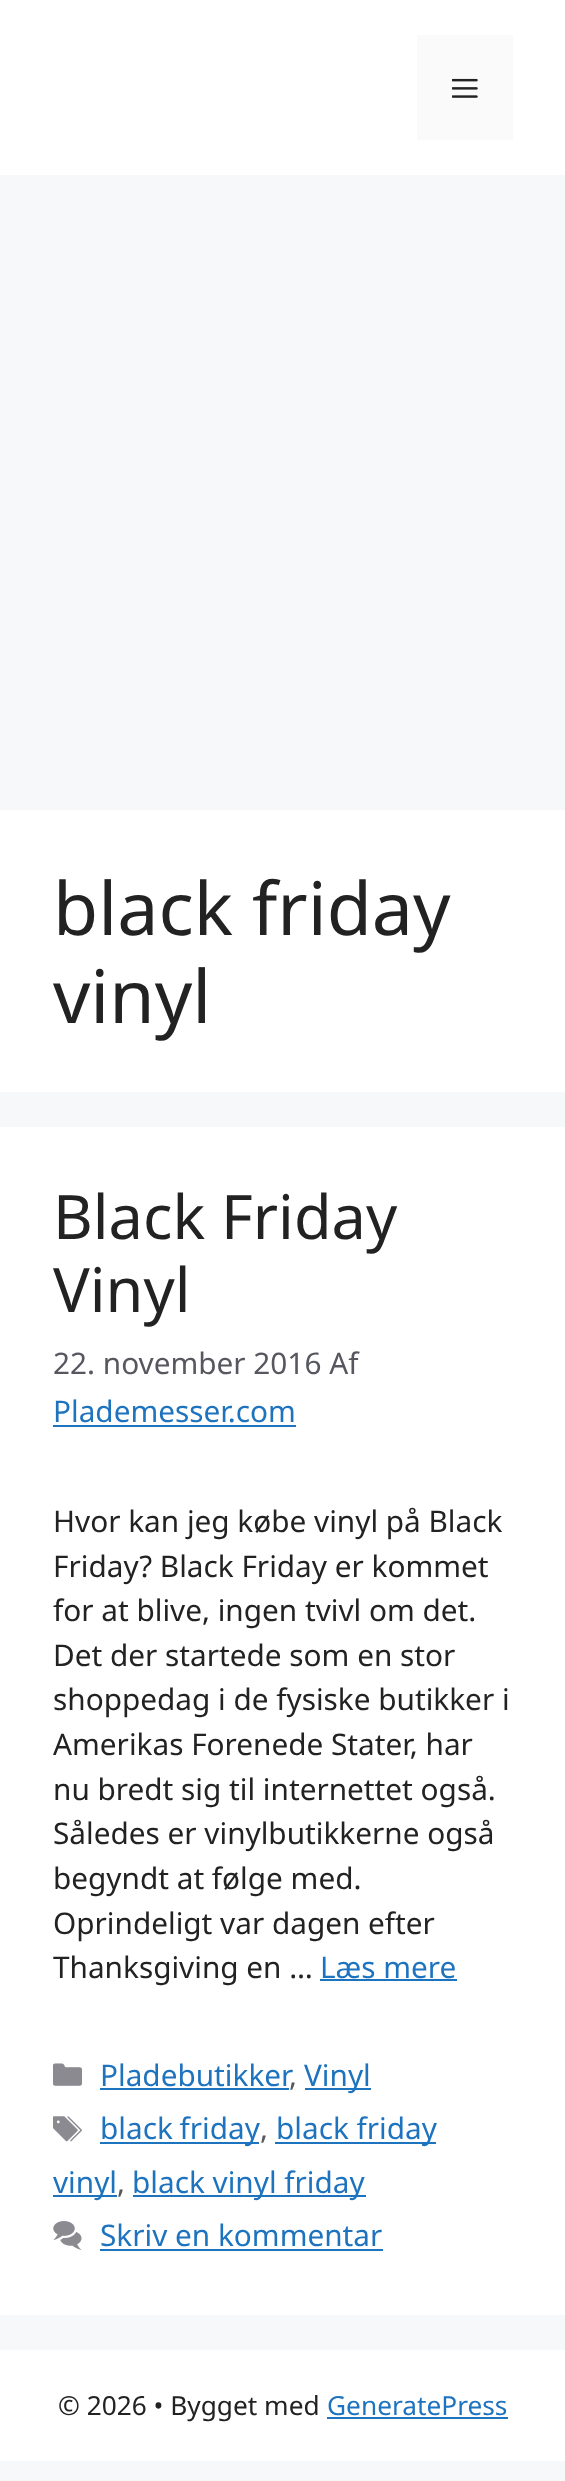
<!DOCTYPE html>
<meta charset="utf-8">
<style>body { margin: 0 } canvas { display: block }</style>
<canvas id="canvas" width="565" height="2481"></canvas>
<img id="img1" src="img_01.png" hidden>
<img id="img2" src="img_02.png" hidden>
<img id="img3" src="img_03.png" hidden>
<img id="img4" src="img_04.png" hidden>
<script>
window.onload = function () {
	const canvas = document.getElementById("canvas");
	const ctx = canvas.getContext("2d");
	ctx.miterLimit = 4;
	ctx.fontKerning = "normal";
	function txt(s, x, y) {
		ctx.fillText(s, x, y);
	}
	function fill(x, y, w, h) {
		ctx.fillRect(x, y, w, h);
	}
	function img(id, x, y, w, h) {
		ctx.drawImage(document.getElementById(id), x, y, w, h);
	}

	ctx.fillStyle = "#F7F8F9";
	fill(0, 0, 565, 2481);
	ctx.fillStyle = "#FFFFFF";
	fill(0, 0, 565, 175);
	ctx.fillStyle = "#FAFAFA";
	fill(417, 35, 96, 105);
	img("img1", 452, 78, 26, 20);
	ctx.fillStyle = "#FFFFFF";
	fill(0, 810, 565, 282);
	fill(0, 1127, 565, 1188);
	ctx.fillStyle = "#1E73BE";
	fill(53, 1425, 243, 2);
	fill(320, 1979, 137, 2);
	img("img2", 53, 2063, 29, 23);
	fill(100, 2088, 189, 2);
	fill(305, 2088, 66, 2);
	img("img3", 53, 2116, 29, 26);
	fill(100, 2142, 159, 2);
	fill(275, 2142, 161, 2);
	fill(53, 2195, 64, 2);
	fill(133, 2195, 233, 2);
	img("img4", 53, 2221, 29, 30);
	fill(100, 2249, 283, 2);
	ctx.fillStyle = "#FFFFFF";
	fill(0, 2350, 565, 111);
	ctx.fillStyle = "#1E73BE";
	fill(327, 2417, 181, 2);
	ctx.font = "73.5px Noto Sans";
	ctx.fillStyle = "#222222";
	txt("black friday", 53, 935);
	txt("vinyl", 53, 1023);
	ctx.font = "61.25px Noto Sans";
	txt("Black Friday", 53, 1239);
	txt("Vinyl", 53, 1312);
	ctx.font = "29.75px Noto Sans";
	ctx.fillStyle = "#575760";
	txt("22. november 2016 Af", 53, 1374);
	ctx.fillStyle = "#1E73BE";
	txt("Plademesser.com", 53, 1422);
	ctx.fillStyle = "#222222";
	txt("Hvor kan jeg købe vinyl på Black", 53, 1532);
	txt("Friday? Black Friday er kommet", 53, 1577);
	txt("for at blive, ingen tvivl om det.", 53, 1621);
	txt("Det der startede som en stor", 53, 1666);
	txt("shoppedag i de fysiske butikker i", 53, 1710);
	txt("Amerikas Forenede Stater, har", 53, 1755);
	txt("nu bredt sig til internettet også.", 53, 1800);
	txt("Således er vinylbutikkerne også", 53, 1844);
	txt("begyndt at følge med.", 53, 1889);
	txt("Oprindeligt var dagen efter", 53, 1934);
	txt("Thanksgiving en …", 53, 1978);
	ctx.fillStyle = "#1E73BE";
	txt("Læs mere", 320, 1978);
	txt("Pladebutikker", 100, 2086);
	txt("Vinyl", 304, 2086);
	ctx.fillStyle = "#575760";
	txt(",", 289, 2086);
	ctx.wordSpacing = "-1px";
	ctx.fillStyle = "#1E73BE";
	txt("black friday", 100, 2139);
	ctx.wordSpacing = "0px";
	ctx.fillStyle = "#575760";
	txt(",", 260, 2139);
	ctx.fillStyle = "#1E73BE";
	txt("black friday", 276, 2139);
	txt("vinyl", 53, 2193);
	ctx.fillStyle = "#575760";
	txt(",", 117, 2193);
	ctx.fillStyle = "#1E73BE";
	txt("black vinyl friday", 132, 2193);
	txt("Skriv en kommentar", 100, 2246);
	ctx.font = "26.25px Noto Sans";
	ctx.fillStyle = "#222222";
	txt("© 2026 • Bygget med", 58, 2415);
	ctx.fillStyle = "#1E73BE";
	txt("GeneratePress", 327, 2415);
};
</script>
